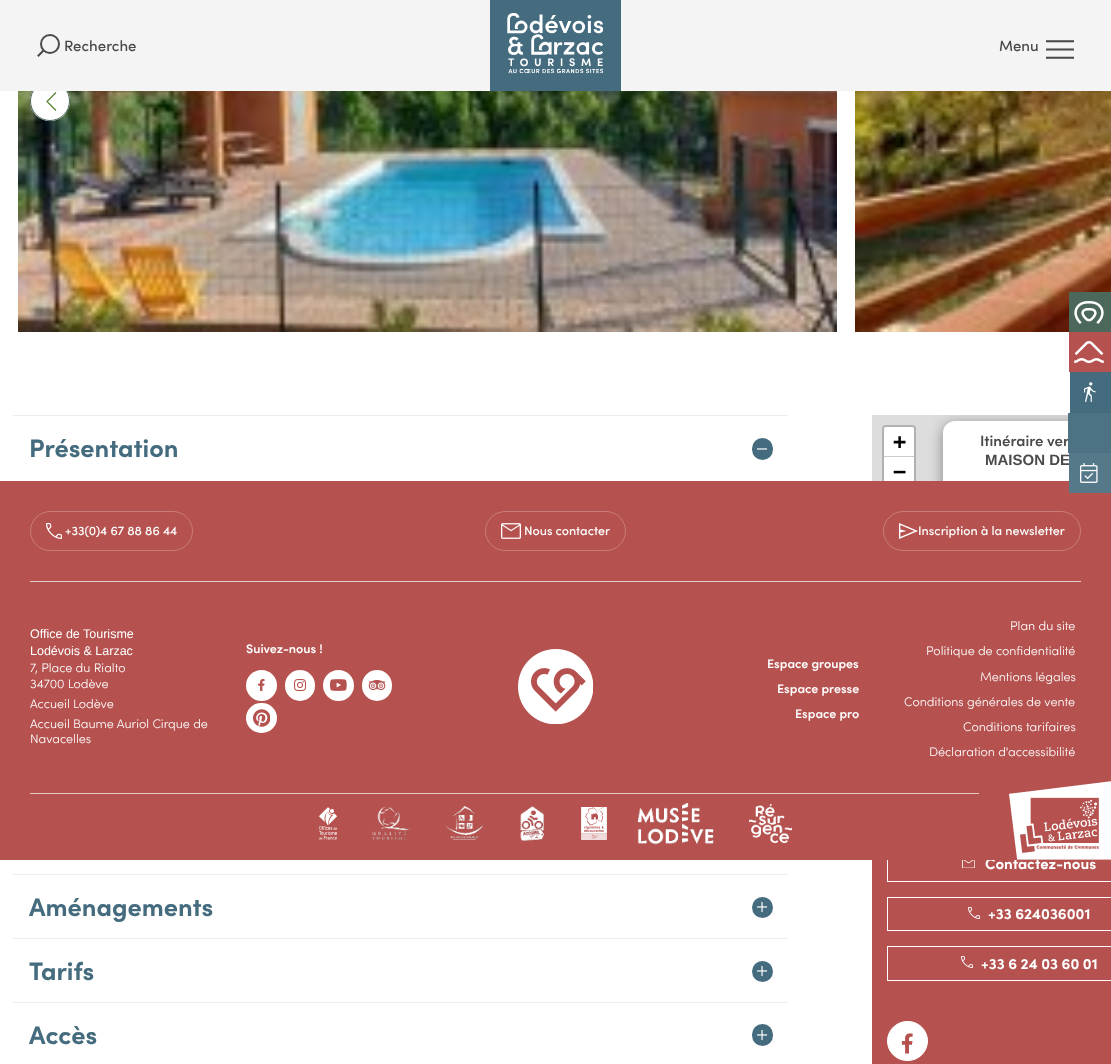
<!DOCTYPE html>
<meta charset="utf-8">
<style>body { margin: 0 } canvas { display: block }</style>
<canvas id="canvas" width="1111" height="1064"></canvas>
<img id="img1" src="img_07.png" hidden>
<img id="img2" src="img_01.png" hidden>
<img id="img3" src="img_02.png" hidden>
<img id="img4" src="img_08.png" hidden>
<img id="img5" src="img_03.png" hidden>
<img id="img6" src="img_04.png" hidden>
<img id="img7" src="img_05.png" hidden>
<img id="img8" src="img_09.png" hidden>
<img id="img9" src="img_10.png" hidden>
<img id="img10" src="img_11.png" hidden>
<img id="img11" src="img_12.png" hidden>
<img id="img12" src="img_13.png" hidden>
<img id="img13" src="img_06.png" hidden>
<img id="img14" src="img_14.png" hidden>
<img id="img15" src="img_15.png" hidden>
<img id="img16" src="img_16.png" hidden>
<img id="img17" src="img_17.png" hidden>
<img id="img18" src="img_18.png" hidden>
<img id="img19" src="img_19.png" hidden>
<img id="img20" src="img_20.png" hidden>
<img id="img21" src="img_21.png" hidden>
<img id="img22" src="img_22.png" hidden>
<img id="img23" src="img_23.png" hidden>
<img id="img24" src="img_24.png" hidden>
<img id="img25" src="img_25.png" hidden>
<img id="img26" src="img_26.png" hidden>
<img id="img27" src="img_27.png" hidden>
<img id="img28" src="img_28.png" hidden>
<img id="img29" src="img_29.png" hidden>
<img id="img30" src="img_30.png" hidden>
<script>
window.onload = function () {
	const canvas = document.getElementById("canvas");
	const ctx = canvas.getContext("2d");
	ctx.miterLimit = 4;
	ctx.fontKerning = "normal";
	function txt(s, x, y) {
		ctx.fillText(s, x, y);
	}
	function fill(x, y, w, h) {
		ctx.fillRect(x, y, w, h);
	}
	function round(x, y, w, h, r) {
		ctx.beginPath();
		ctx.roundRect(x, y, w, h, r);
		ctx.fill();
	}
	function img(id, x, y, w, h) {
		ctx.drawImage(document.getElementById(id), x, y, w, h);
	}

	ctx.fillStyle = "#FFFFFF";
	fill(0, 0, 1111, 1064);
	img("img1", 18, 91, 819, 241);
	ctx.beginPath();
	ctx.arc(50, 101, 20, 0, Math.PI * 2);
	ctx.fill();
	ctx.beginPath();
	ctx.moveTo(56, 110.5);
	ctx.lineTo(47, 101.5);
	ctx.lineTo(56, 92.5);
	ctx.strokeStyle = "#55802E";
	ctx.lineWidth = 1.2;
	ctx.stroke();
	ctx.beginPath();
	ctx.arc(50, 101, 19.5, 0, Math.PI * 2);
	ctx.strokeStyle = "#4B685A";
	ctx.lineWidth = 1;
	ctx.stroke();
	ctx.fillStyle = "#F4F4F4";
	fill(0, 0, 1111, 91);
	ctx.beginPath();
	ctx.arc(50, 44, 9, 0, Math.PI * 2);
	ctx.strokeStyle = "#4A4A49";
	ctx.lineWidth = 2;
	ctx.stroke();
	ctx.beginPath();
	ctx.moveTo(43, 51);
	ctx.lineTo(38.5, 55.5);
	ctx.lineCap = "square";
	ctx.stroke();
	ctx.fillStyle = "#446B7E";
	fill(490, 0, 131, 91);
	img("img2", 507, 13, 97, 61);
	img("img3", 1046, 40, 28, 19);
	img("img4", 855, 91, 256, 241);
	ctx.fillStyle = "#4B685A";
	fill(1069, 292, 42, 40);
	img("img5", 1074, 301, 30, 23);
	ctx.fillStyle = "#B5524F";
	fill(1069, 332, 42, 40);
	img("img6", 1074, 341, 30, 22);
	ctx.fillStyle = "#DDDDDD";
	fill(872, 415, 196, 66);
	ctx.save();
	ctx.beginPath();
	ctx.rect(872, 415, 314, 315);
	ctx.clip();
	ctx.fillStyle = "rgba(0, 0, 0, 0.4)";
	ctx.filter = "blur(7px)";
	ctx.beginPath();
	ctx.roundRect(943, 424, 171, 98, 12);
	ctx.fill();
	ctx.filter = "none";
	ctx.restore();
	ctx.fillStyle = "#446B7E";
	fill(1070, 372, 41, 41);
	img("img7", 1084, 382, 12, 20);
	ctx.fillStyle = "#ECEDEC";
	fill(13, 415, 775, 1);
	ctx.fillStyle = "#446B7E";
	round(752, 438, 21, 22, 10.5);
	img("img8", 757, 448, 11, 2);
	ctx.fillStyle = "#ECEDEC";
	fill(13, 874, 775, 1);
	fill(13, 938, 775, 1);
	ctx.fillStyle = "#446B7E";
	ctx.beginPath();
	ctx.arc(762.5, 907.5, 10.5, 0, Math.PI * 2);
	ctx.fill();
	img("img9", 757, 901, 11, 11);
	ctx.fillStyle = "#ECEDEC";
	fill(13, 1002, 775, 1);
	ctx.fillStyle = "#446B7E";
	ctx.beginPath();
	ctx.arc(762.5, 971.5, 10.5, 0, Math.PI * 2);
	ctx.fill();
	img("img9", 757, 965, 11, 11);
	round(752, 1024, 21, 22, 10.5);
	img("img9", 757, 1029, 11, 11);
	ctx.beginPath();
	ctx.roundRect(883, 426, 32, 62, 3);
	ctx.strokeStyle = "#B1B1B1";
	ctx.stroke();
	ctx.fillStyle = "#FFFFFF";
	ctx.beginPath();
	ctx.roundRect(884, 427, 30, 30, [2, 2, 0, 0]);
	ctx.fill();
	ctx.fillStyle = "#CCCCCC";
	fill(884, 456, 30, 1);
	ctx.fillStyle = "#FFFFFF";
	fill(884, 457, 30, 24);
	round(943, 421, 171, 98, 12);
	ctx.fillStyle = "#B5524F";
	fill(872, 860, 239, 204);
	ctx.strokeStyle = "#FFFFFF";
	ctx.lineWidth = 1;
	ctx.strokeRect(887.5, 847.5, 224, 34);
	img("img10", 962, 860, 13, 8);
	ctx.strokeRect(887.5, 897.5, 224, 33);
	img("img11", 968, 907, 12, 12);
	ctx.strokeRect(887.5, 946.5, 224, 34);
	img("img11", 961, 956, 12, 12);
	ctx.fillStyle = "#FFFFFF";
	ctx.beginPath();
	ctx.roundRect(887.5, 1021.5, 40, 39, 19.5);
	ctx.fill();
	ctx.stroke();
	img("img12", 901, 1033, 12, 21);
	ctx.font = "500 15px Sofia";
	ctx.fillStyle = "#4A4A49";
	txt("Recherche", 64, 51);
	txt("Menu", 999, 51);
	ctx.font = "bold 25.25px Sofia";
	ctx.fillStyle = "#446B7E";
	txt("Présentation", 29, 457);
	txt("Aménagements", 29, 916);
	txt("Tarifs", 29, 980);
	txt("Accès", 29, 1044);
	ctx.font = "bold 22px DejaVu Sans Mono";
	ctx.fillStyle = "#000000";
	txt("+", 893, 449);
	txt("−", 893, 479);
	ctx.font = "600 15px Sofia";
	ctx.fillStyle = "#4A4A49";
	txt("Itinéraire ver", 980, 446);
	ctx.fillStyle = "#4D7284";
	fill(1068, 413, 43, 40);
	ctx.font = "bold 15px Liberation Sans";
	ctx.fillStyle = "#4A4A49";
	txt("MAISON DE", 985, 465);
	ctx.font = "bold 15px Sofia";
	ctx.fillStyle = "#FFFFFF";
	txt("Contactez-nous", 985, 869);
	txt("+33 624036001", 988, 919);
	txt("+33 6 24 03 60 01", 981, 969);
	ctx.fillStyle = "#B5524F";
	fill(0, 481, 1111, 379);
	ctx.fillStyle = "#56798A";
	fill(1069, 453, 42, 40);
	img("img13", 1080, 463, 18, 20);
	img("img14", 46, 523, 16, 16);
	ctx.beginPath();
	ctx.roundRect(30.5, 511.5, 162, 39, 19.5);
	ctx.strokeStyle = "#C87D7B";
	ctx.stroke();
	ctx.font = "500 12.5px Sofia";
	ctx.fillStyle = "#FFFFFF";
	txt("+33(0)4 67 88 86 44", 65, 535);
	img("img15", 501, 523, 20, 16);
	ctx.beginPath();
	ctx.roundRect(485.5, 511.5, 140, 39, 19.5);
	ctx.stroke();
	txt("Nous contacter", 524, 535);
	img("img16", 899, 523, 19, 16);
	ctx.beginPath();
	ctx.roundRect(883.5, 511.5, 197, 39, 19.5);
	ctx.stroke();
	txt("Inscription à la newsletter", 918, 535);
	ctx.fillStyle = "#E9CBCA";
	fill(30, 581, 1051, 1);
	ctx.font = "12.5px Liberation Sans";
	ctx.fillStyle = "#FFFFFF";
	txt("Office de Tourisme", 30, 638);
	txt("Lodévois & Larzac", 30, 655);
	ctx.font = "300 12.5px Sofia";
	txt("7, Place du Rialto", 30, 672);
	txt("34700 Lodève", 30, 688);
	txt("Accueil Lodève", 30, 708);
	txt("Accueil Baume Auriol Cirque de", 30, 728);
	txt("Navacelles", 30, 743);
	ctx.font = "600 12.5px Sofia";
	txt("Suivez-nous !", 246, 653);
	ctx.beginPath();
	ctx.arc(261.5, 685.5, 15.5, 0, Math.PI * 2);
	ctx.fill();
	img("img17", 258, 679, 7, 12);
	round(285, 670, 30, 31, 15);
	img("img18", 294, 679, 12, 12);
	ctx.beginPath();
	ctx.arc(338.5, 685.5, 15.5, 0, Math.PI * 2);
	ctx.fill();
	img("img19", 330, 679, 17, 12);
	round(362, 670, 30, 31, 15);
	img("img20", 368, 680, 18, 11);
	round(246, 703, 31, 30, 15);
	img("img21", 253, 709, 17, 18);
	img("img22", 518, 649, 75, 75);
	txt("Espace groupes", 767, 668);
	txt("Espace presse", 777, 693);
	txt("Espace pro", 795, 718);
	ctx.font = "300 12.5px Sofia";
	txt("Plan du site", 1010, 630);
	txt("Politique de confidentialité", 926, 655);
	txt("Mentions légales", 980, 681);
	txt("Conditions générales de vente", 904, 706);
	txt("Conditions tarifaires", 963, 731);
	txt("Déclaration d'accessibilité", 929, 756);
	ctx.fillStyle = "#E9CBCA";
	fill(30, 793, 949, 1);
	img("img23", 319, 807, 18, 33);
	img("img24", 371, 806, 40, 35);
	img("img25", 445, 806, 39, 34);
	img("img26", 520, 806, 25, 35);
	img("img27", 581, 807, 26, 33);
	img("img28", 637, 802, 77, 43);
	img("img29", 749, 804, 43, 39);
	img("img30", 1009, 781, 102, 79);
};
</script>
